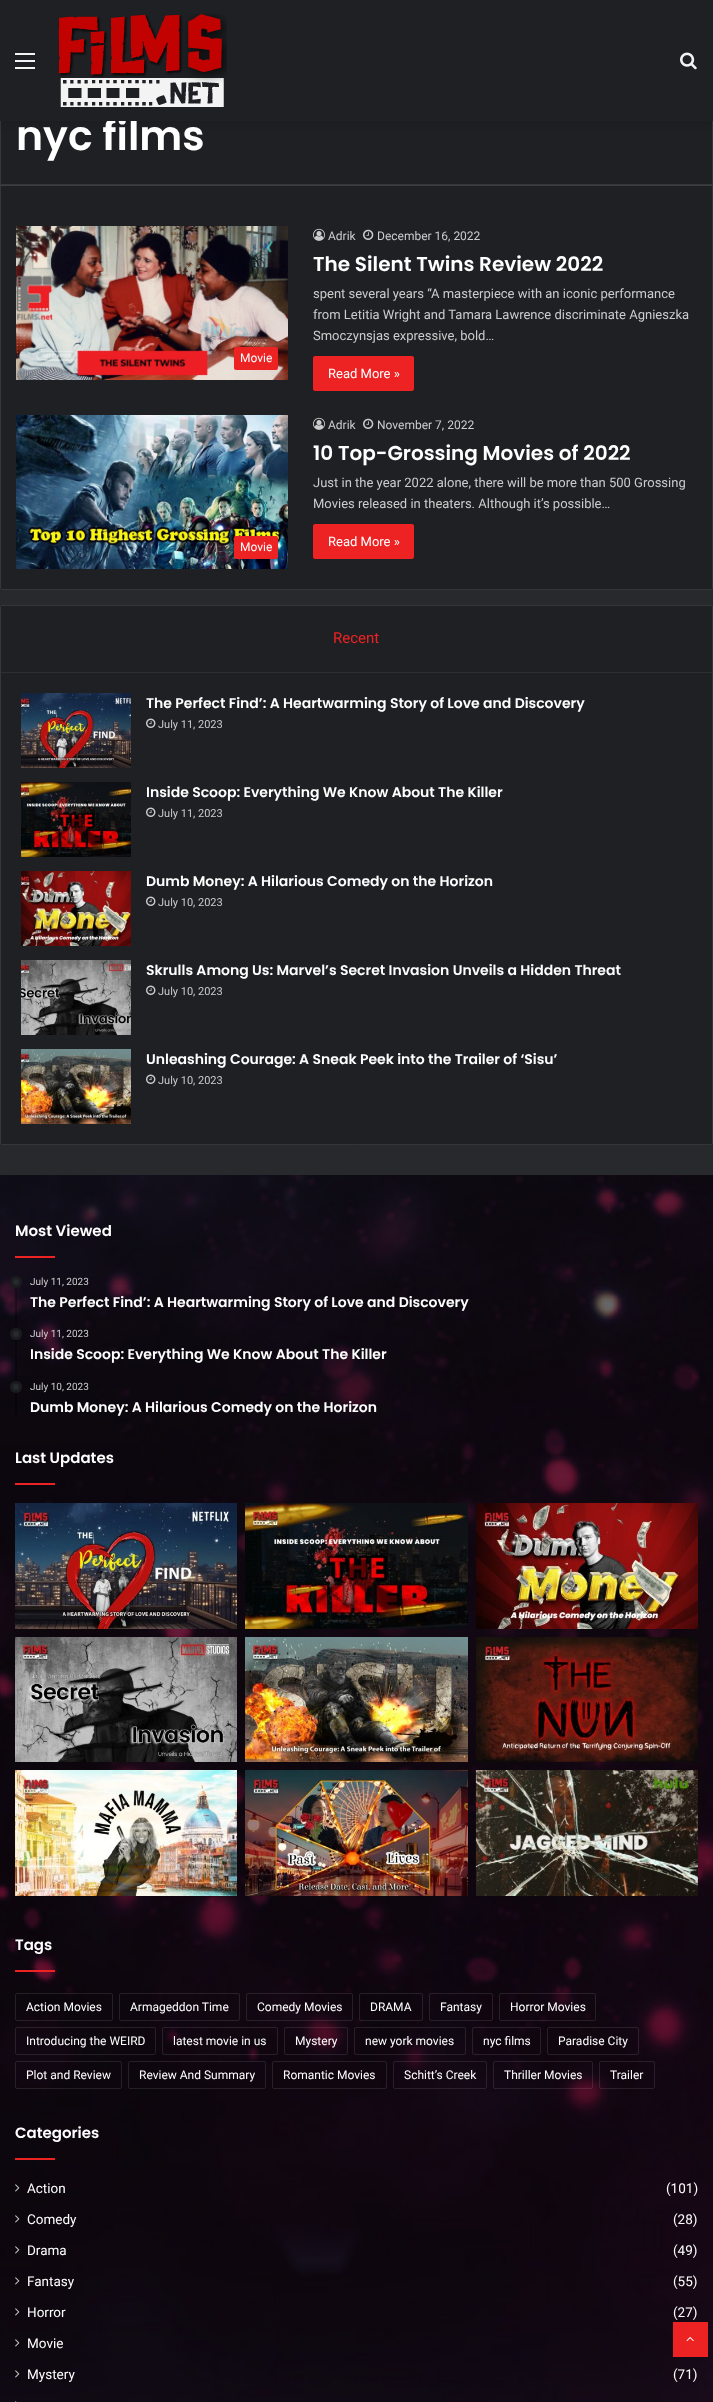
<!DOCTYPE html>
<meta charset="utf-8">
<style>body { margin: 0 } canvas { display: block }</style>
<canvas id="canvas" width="713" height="2402"></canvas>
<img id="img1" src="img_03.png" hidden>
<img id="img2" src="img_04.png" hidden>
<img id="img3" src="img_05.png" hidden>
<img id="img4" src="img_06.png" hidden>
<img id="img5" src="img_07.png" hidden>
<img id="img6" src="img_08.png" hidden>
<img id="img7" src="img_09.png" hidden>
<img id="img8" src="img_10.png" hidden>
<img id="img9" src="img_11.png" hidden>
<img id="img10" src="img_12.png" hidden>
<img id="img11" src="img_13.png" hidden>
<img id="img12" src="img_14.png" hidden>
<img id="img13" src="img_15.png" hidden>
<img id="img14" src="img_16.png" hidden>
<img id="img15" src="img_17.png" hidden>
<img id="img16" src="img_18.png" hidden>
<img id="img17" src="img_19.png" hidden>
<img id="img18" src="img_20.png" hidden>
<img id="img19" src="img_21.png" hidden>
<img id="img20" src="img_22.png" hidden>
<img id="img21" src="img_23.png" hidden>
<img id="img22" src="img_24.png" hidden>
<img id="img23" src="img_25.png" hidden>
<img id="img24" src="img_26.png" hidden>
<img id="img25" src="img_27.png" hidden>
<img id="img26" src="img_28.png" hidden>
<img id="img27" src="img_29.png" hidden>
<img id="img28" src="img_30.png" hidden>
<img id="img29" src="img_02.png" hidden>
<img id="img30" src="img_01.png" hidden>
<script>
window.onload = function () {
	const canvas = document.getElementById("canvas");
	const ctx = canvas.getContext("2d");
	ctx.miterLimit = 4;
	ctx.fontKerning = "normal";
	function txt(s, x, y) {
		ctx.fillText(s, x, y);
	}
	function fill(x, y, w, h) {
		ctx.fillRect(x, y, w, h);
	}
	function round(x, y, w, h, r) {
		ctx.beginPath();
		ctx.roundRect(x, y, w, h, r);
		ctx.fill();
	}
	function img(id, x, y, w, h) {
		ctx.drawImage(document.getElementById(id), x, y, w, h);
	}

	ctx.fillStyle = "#27292D";
	fill(0, 0, 713, 2402);
	ctx.fillStyle = "#1F2024";
	fill(1, 121, 711, 63);
	ctx.strokeStyle = "#35363A";
	ctx.strokeRect(0.5, 45.5, 712, 139);
	ctx.fillStyle = "rgba(0, 0, 0, 0.1)";
	ctx.filter = "blur(3.5px)";
	ctx.beginPath();
	ctx.rect(0, 3, 713, 121);
	ctx.fill();
	ctx.filter = "none";
	ctx.fillStyle = "#3D3E42";
	fill(0, 185, 713, 1);
	ctx.fillStyle = "#1F2024";
	ctx.beginPath();
	ctx.roundRect(0, 186, 713, 404, [0, 0, 2, 2]);
	ctx.fill();
	ctx.fillStyle = "#35363A";
	fill(712, 186, 1, 403);
	fill(1, 589, 711, 1);
	fill(0, 186, 1, 403);
	img("img1", 16, 226, 272, 154);
	ctx.fillStyle = "#EC2223";
	round(234, 347, 44, 23, 2);
	img("img2", 313, 228, 12, 13);
	img("img3", 363, 229, 11, 11);
	round(313, 356, 101, 35, 2);
	img("img4", 16, 415, 272, 154);
	round(234, 536, 44, 23, 2);
	img("img2", 313, 417, 12, 13);
	img("img3", 363, 418, 11, 11);
	round(313, 524, 101, 35, 2);
	ctx.fillStyle = "#1F2024";
	ctx.beginPath();
	ctx.roundRect(0.5, 605.5, 712, 539, 1.5);
	ctx.fill();
	ctx.stroke();
	ctx.fillStyle = "#2C3033";
	fill(1, 672, 711, 1);
	ctx.fillStyle = "#1F2024";
	fill(1, 606, 711, 1);
	img("img5", 21, 693, 110, 75);
	img("img6", 146, 718, 10, 10);
	img("img7", 21, 782, 110, 75);
	img("img6", 146, 807, 10, 10);
	img("img8", 21, 871, 110, 75);
	img("img6", 146, 896, 10, 10);
	img("img9", 21, 960, 110, 75);
	img("img6", 146, 985, 10, 10);
	img("img10", 21, 1049, 110, 75);
	img("img6", 146, 1074, 10, 10);
	img("img11", 0, 1175, 713, 1227);
	ctx.fillStyle = "#EC2223";
	fill(15, 1256, 40, 2);
	ctx.fillStyle = "rgba(0, 0, 0, 0.3)";
	fill(15, 1276, 2, 141);
	ctx.fillStyle = "#27292D";
	ctx.beginPath();
	ctx.arc(16, 1282, 6, 0, Math.PI * 2);
	ctx.fill();
	ctx.beginPath();
	ctx.arc(16, 1282, 4.5, 0, Math.PI * 2);
	ctx.strokeStyle = "rgba(0, 0, 0, 0.3)";
	ctx.lineWidth = 3;
	ctx.stroke();
	ctx.beginPath();
	ctx.arc(16, 1334, 6, 0, Math.PI * 2);
	ctx.fill();
	ctx.beginPath();
	ctx.arc(16, 1334, 4.5, 0, Math.PI * 2);
	ctx.stroke();
	ctx.beginPath();
	ctx.arc(16, 1387, 6, 0, Math.PI * 2);
	ctx.fill();
	ctx.beginPath();
	ctx.arc(16, 1387, 4.5, 0, Math.PI * 2);
	ctx.stroke();
	ctx.fillStyle = "#EC2223";
	fill(15, 1483, 40, 2);
	img("img12", 15, 1503, 222, 126);
	img("img13", 245, 1503, 223, 126);
	img("img14", 476, 1503, 222, 126);
	img("img15", 15, 1637, 222, 125);
	img("img16", 245, 1637, 223, 125);
	img("img17", 476, 1637, 222, 125);
	img("img18", 15, 1770, 222, 126);
	img("img19", 245, 1770, 223, 126);
	img("img20", 475, 1770, 223, 126);
	fill(15, 1970, 40, 2);
	ctx.beginPath();
	ctx.roundRect(15.5, 1993.5, 97, 27, 1.5);
	ctx.strokeStyle = "rgba(255, 255, 255, 0.1)";
	ctx.lineWidth = 1;
	ctx.stroke();
	ctx.beginPath();
	ctx.roundRect(119.5, 1993.5, 120, 27, 1.5);
	ctx.stroke();
	ctx.beginPath();
	ctx.roundRect(246.5, 1993.5, 106, 27, 1.5);
	ctx.stroke();
	ctx.beginPath();
	ctx.roundRect(359.5, 1993.5, 63, 27, 1.5);
	ctx.stroke();
	ctx.beginPath();
	ctx.roundRect(429.5, 1993.5, 63, 27, 1.5);
	ctx.stroke();
	ctx.beginPath();
	ctx.roundRect(499.5, 1993.5, 96, 27, 1.5);
	ctx.stroke();
	ctx.beginPath();
	ctx.roundRect(15.5, 2027.5, 140, 27, 1.5);
	ctx.stroke();
	ctx.beginPath();
	ctx.roundRect(162.5, 2027.5, 115, 27, 1.5);
	ctx.stroke();
	ctx.beginPath();
	ctx.roundRect(284.5, 2027.5, 63, 27, 1.5);
	ctx.stroke();
	ctx.beginPath();
	ctx.roundRect(354.5, 2027.5, 111, 27, 1.5);
	ctx.stroke();
	ctx.beginPath();
	ctx.roundRect(472.5, 2027.5, 68, 27, 1.5);
	ctx.stroke();
	ctx.beginPath();
	ctx.roundRect(547.5, 2027.5, 91, 27, 1.5);
	ctx.stroke();
	ctx.beginPath();
	ctx.roundRect(15.5, 2061.5, 106, 27, 1.5);
	ctx.stroke();
	ctx.beginPath();
	ctx.roundRect(128.5, 2061.5, 137, 27, 1.5);
	ctx.stroke();
	ctx.beginPath();
	ctx.roundRect(272.5, 2061.5, 114, 27, 1.5);
	ctx.stroke();
	ctx.beginPath();
	ctx.roundRect(393.5, 2061.5, 93, 27, 1.5);
	ctx.stroke();
	ctx.beginPath();
	ctx.roundRect(493.5, 2061.5, 99, 27, 1.5);
	ctx.stroke();
	ctx.beginPath();
	ctx.roundRect(599.5, 2061.5, 55, 27, 1.5);
	ctx.stroke();
	fill(15, 2158, 40, 2);
	img("img21", 15, 2184, 5, 8);
	img("img22", 15, 2215, 5, 8);
	img("img22", 15, 2246, 5, 8);
	img("img23", 15, 2277, 5, 8);
	img("img24", 15, 2308, 5, 8);
	img("img25", 15, 2339, 5, 8);
	img("img26", 15, 2370, 5, 8);
	img("img27", 15, 2401, 2, 1);
	fill(673, 2322, 35, 35);
	img("img28", 686, 2336, 8, 6);
	ctx.font = "600 41px Poppins";
	ctx.fillStyle = "#FFFFFF";
	txt("nyc films", 16, 150);
	ctx.fillStyle = "#1F2024";
	fill(0, 0, 713, 121);
	img("img29", 680, 52, 17, 18);
	ctx.fillStyle = "#F4F4F4";
	fill(15, 67, 20, 2);
	fill(15, 53, 20, 2);
	fill(15, 60, 20, 2);
	img("img30", 58, 14, 169, 93);
	ctx.font = "12px Roboto";
	ctx.fillStyle = "#FFFFFF";
	txt("Movie", 240, 362);
	ctx.fillStyle = "#CCCCCC";
	txt("Adrik", 328, 240);
	txt("December 16, 2022", 377, 240);
	ctx.font = "600 20px Poppins";
	ctx.fillStyle = "#FFFFFF";
	txt("The Silent Twins Review 2022", 313, 271);
	ctx.font = "13px Roboto";
	ctx.fillStyle = "#CCCCCC";
	txt("spent several years “A masterpiece with an iconic performance", 313, 298);
	txt("from Letitia Wright and Tamara Lawrence discriminate Agnieszka", 313, 319);
	txt("Smoczynsjas expressive, bold…", 313, 340);
	ctx.fillStyle = "#FFFFFF";
	txt("Read More »", 328, 378);
	ctx.font = "12px Roboto";
	txt("Movie", 240, 551);
	ctx.fillStyle = "#CCCCCC";
	txt("Adrik", 328, 429);
	txt("November 7, 2022", 377, 429);
	ctx.font = "600 20px Poppins";
	ctx.fillStyle = "#FFFFFF";
	txt("10 Top-Grossing Movies of 2022", 313, 460);
	ctx.font = "13px Roboto";
	ctx.fillStyle = "#CCCCCC";
	txt("Just in the year 2022 alone, there will be more than 500 Grossing", 313, 487);
	txt("Movies released in theaters. Although it’s possible…", 313, 508);
	ctx.fillStyle = "#FFFFFF";
	txt("Read More »", 328, 546);
	ctx.font = "15px Roboto";
	ctx.fillStyle = "#EC2223";
	txt("Recent", 333, 643);
	ctx.font = "600 14px Poppins";
	ctx.fillStyle = "#FFFFFF";
	txt("The Perfect Find’: A Heartwarming Story of Love and Discovery", 146, 708);
	ctx.font = "11px Roboto";
	ctx.fillStyle = "#CCCCCC";
	txt("July 11, 2023", 158, 728);
	ctx.font = "600 14px Poppins";
	ctx.fillStyle = "#FFFFFF";
	txt("Inside Scoop: Everything We Know About The Killer", 146, 797);
	ctx.font = "11px Roboto";
	ctx.fillStyle = "#CCCCCC";
	txt("July 11, 2023", 158, 817);
	ctx.font = "600 14px Poppins";
	ctx.fillStyle = "#FFFFFF";
	txt("Dumb Money: A Hilarious Comedy on the Horizon", 146, 886);
	ctx.font = "11px Roboto";
	ctx.fillStyle = "#CCCCCC";
	txt("July 10, 2023", 158, 906);
	ctx.font = "600 14px Poppins";
	ctx.fillStyle = "#FFFFFF";
	txt("Skrulls Among Us: Marvel’s Secret Invasion Unveils a Hidden Threat", 146, 975);
	ctx.font = "11px Roboto";
	ctx.fillStyle = "#CCCCCC";
	txt("July 10, 2023", 158, 995);
	ctx.font = "600 14px Poppins";
	ctx.fillStyle = "#FFFFFF";
	txt("Unleashing Courage: A Sneak Peek into the Trailer of ‘Sisu’", 146, 1064);
	ctx.font = "11px Roboto";
	ctx.fillStyle = "#CCCCCC";
	txt("July 10, 2023", 158, 1084);
	ctx.font = "600 15px Poppins";
	ctx.fillStyle = "#FFFFFF";
	txt("Most Viewed", 15, 1236);
	ctx.font = "10px Roboto";
	ctx.fillStyle = "#CCCCCC";
	txt("July 11, 2023", 30, 1285);
	ctx.font = "600 14px Poppins";
	ctx.fillStyle = "#FFFFFF";
	txt("The Perfect Find’: A Heartwarming Story of Love and Discovery", 30, 1307);
	ctx.font = "10px Roboto";
	ctx.fillStyle = "#CCCCCC";
	txt("July 11, 2023", 30, 1337);
	ctx.font = "600 14px Poppins";
	ctx.fillStyle = "#FFFFFF";
	txt("Inside Scoop: Everything We Know About The Killer", 30, 1359);
	ctx.font = "10px Roboto";
	ctx.fillStyle = "#CCCCCC";
	txt("July 10, 2023", 30, 1390);
	ctx.font = "600 14px Poppins";
	ctx.fillStyle = "#FFFFFF";
	txt("Dumb Money: A Hilarious Comedy on the Horizon", 30, 1412);
	ctx.font = "600 15px Poppins";
	txt("Last Updates", 15, 1463);
	txt("Tags", 15, 1950);
	ctx.font = "12px Roboto";
	txt("Action Movies", 26, 2011);
	txt("Armageddon Time", 130, 2011);
	txt("Comedy Movies", 257, 2011);
	txt("DRAMA", 370, 2011);
	txt("Fantasy", 440, 2011);
	txt("Horror Movies", 510, 2011);
	txt("Introducing the WEIRD", 26, 2045);
	txt("latest movie in us", 173, 2045);
	txt("Mystery", 295, 2045);
	txt("new york movies", 365, 2045);
	txt("nyc films", 483, 2045);
	txt("Paradise City", 558, 2045);
	txt("Plot and Review", 26, 2079);
	txt("Review And Summary", 139, 2079);
	txt("Romantic Movies", 283, 2079);
	txt("Schitt’s Creek", 404, 2079);
	txt("Thriller Movies", 504, 2079);
	txt("Trailer", 610, 2079);
	ctx.font = "600 15px Poppins";
	txt("Categories", 15, 2138);
	ctx.font = "13.5px Roboto";
	txt("Action", 27, 2193);
	txt("(101)", 666, 2193);
	txt("Comedy", 27, 2224);
	txt("(28)", 673, 2224);
	txt("Drama", 27, 2255);
	txt("(49)", 673, 2255);
	txt("Fantasy", 27, 2286);
	txt("(55)", 673, 2286);
	txt("Horror", 27, 2317);
	txt("(27)", 673, 2317);
	txt("Movie", 27, 2348);
	txt("Mystery", 27, 2379);
	txt("(71)", 673, 2379);
};
</script>
